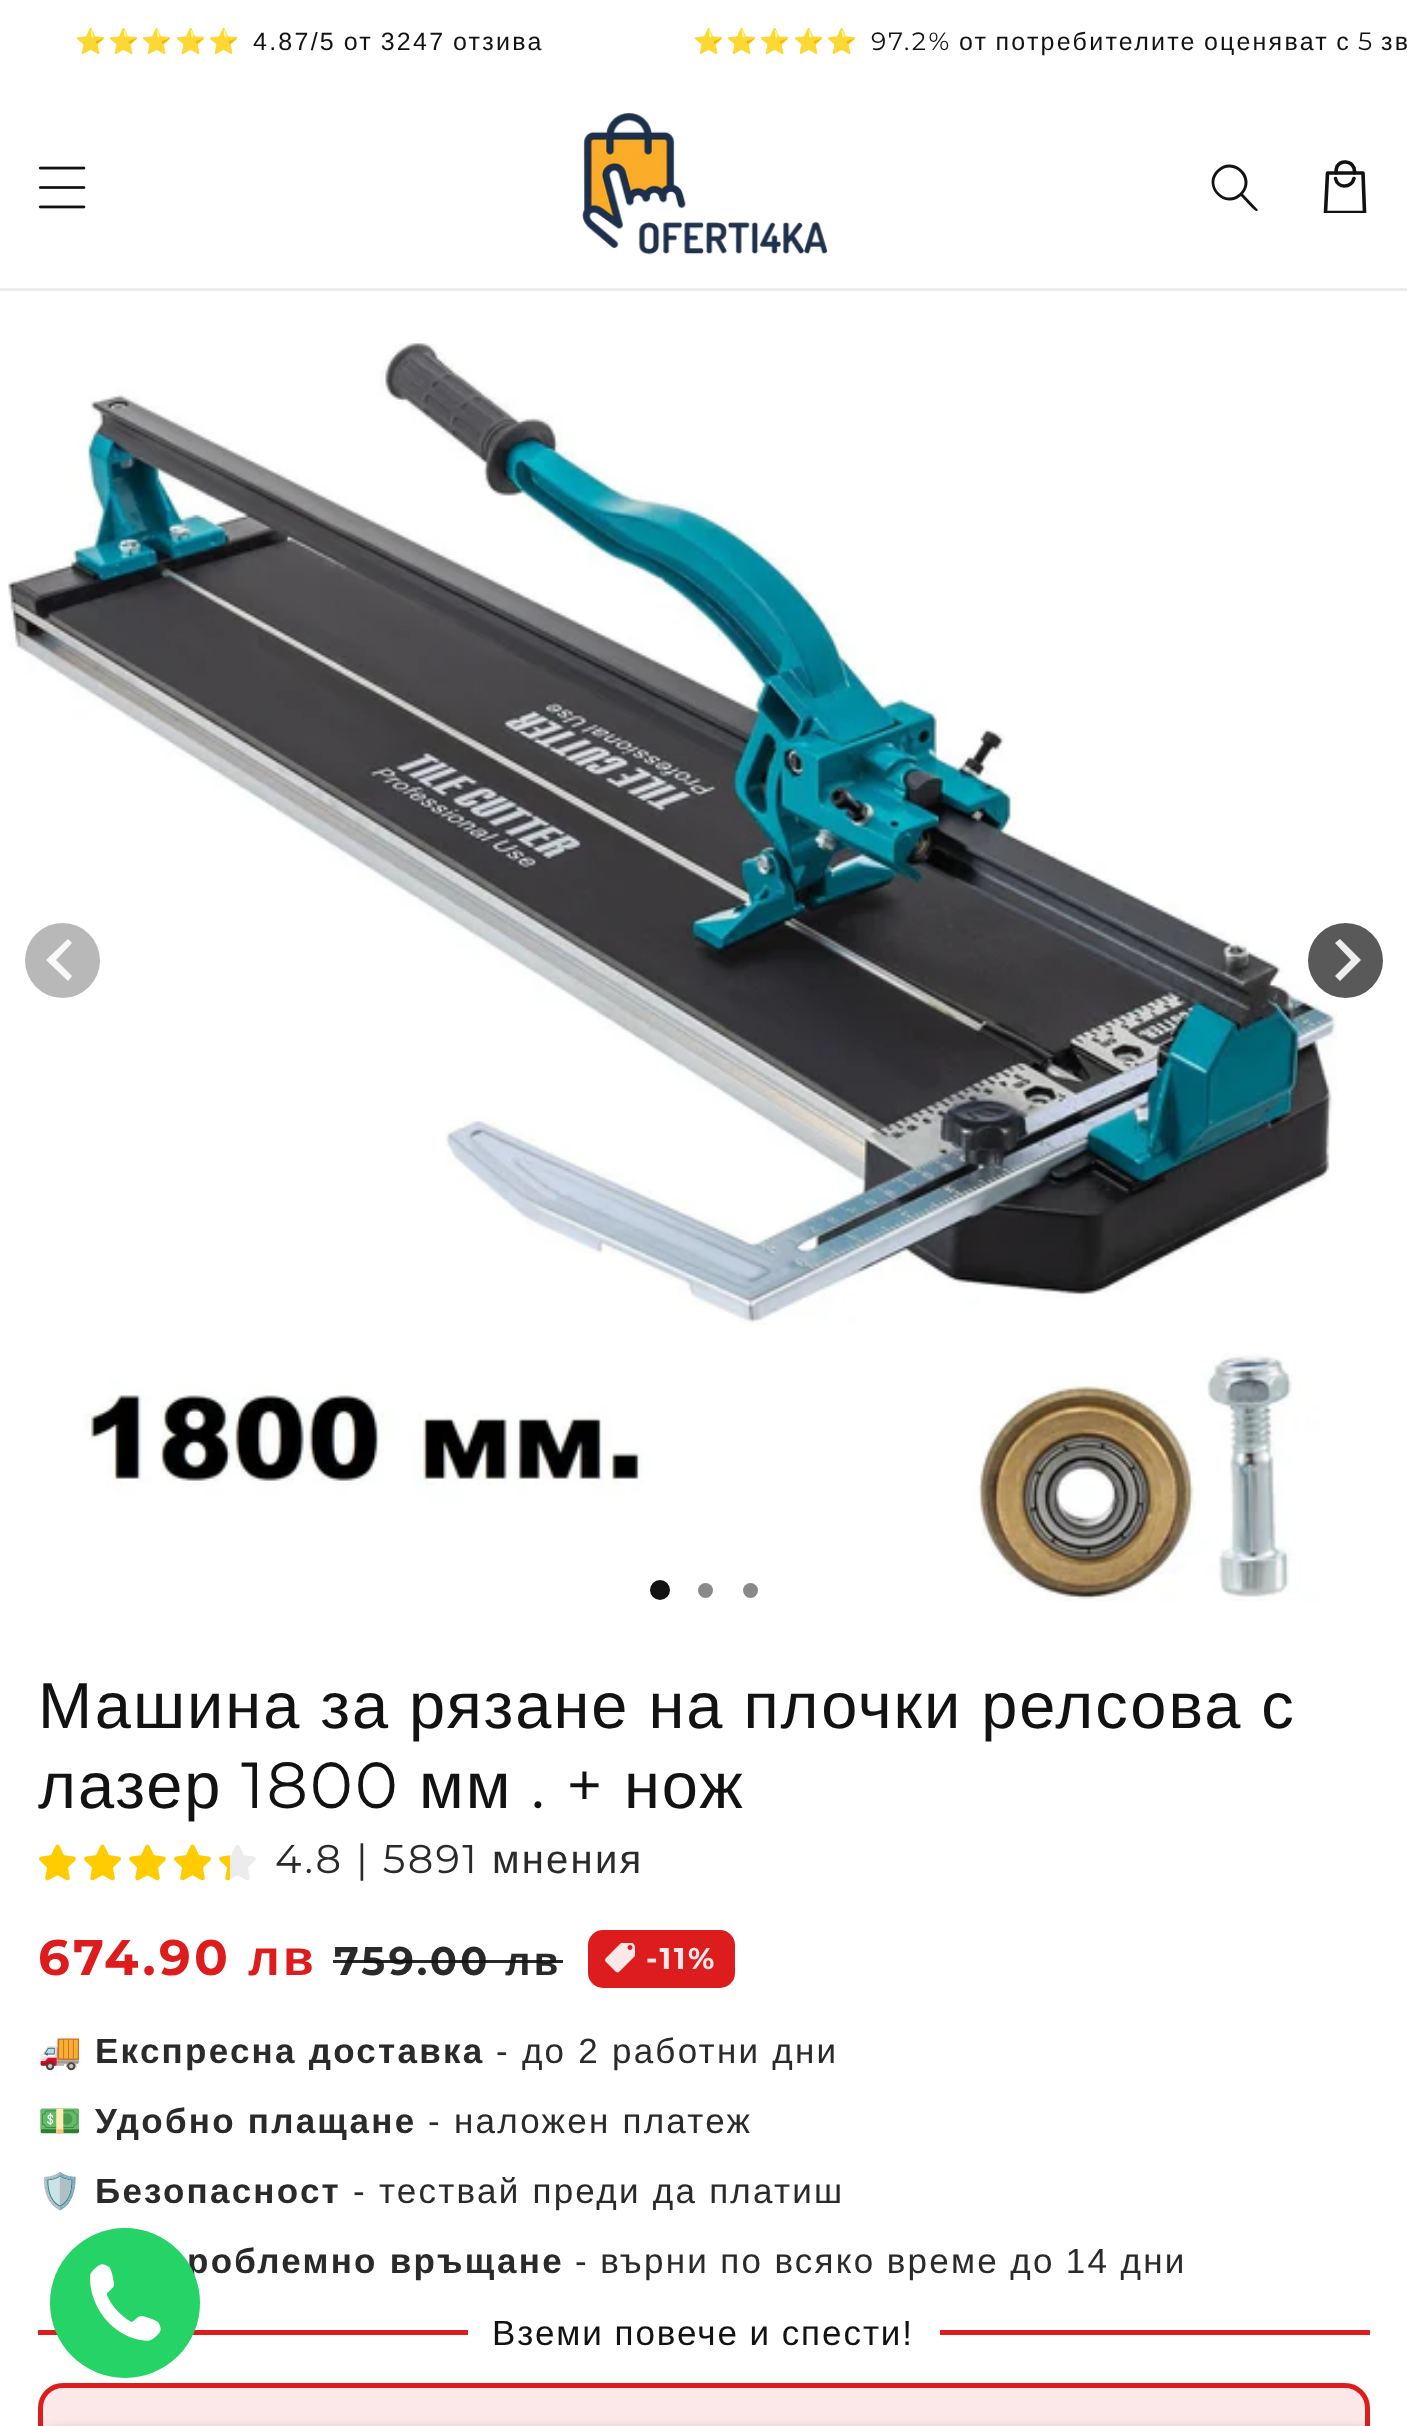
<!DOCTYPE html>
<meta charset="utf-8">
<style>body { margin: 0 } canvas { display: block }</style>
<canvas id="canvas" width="1407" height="2426"></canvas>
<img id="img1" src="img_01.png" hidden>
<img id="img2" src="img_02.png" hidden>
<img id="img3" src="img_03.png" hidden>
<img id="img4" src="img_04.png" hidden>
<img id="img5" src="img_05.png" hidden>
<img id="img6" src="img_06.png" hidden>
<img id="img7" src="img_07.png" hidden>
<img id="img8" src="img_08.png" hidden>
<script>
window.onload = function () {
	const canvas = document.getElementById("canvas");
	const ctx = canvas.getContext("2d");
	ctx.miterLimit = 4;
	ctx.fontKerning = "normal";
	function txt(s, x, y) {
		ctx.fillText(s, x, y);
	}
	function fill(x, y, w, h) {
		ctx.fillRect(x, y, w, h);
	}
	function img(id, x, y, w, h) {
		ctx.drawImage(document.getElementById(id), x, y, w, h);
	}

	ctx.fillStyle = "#FFFFFF";
	fill(0, 0, 1407, 2426);
	ctx.fillStyle = "#ECECEC";
	fill(0, 288, 1407, 3);
	img("img1", 38, 166, 48, 43);
	img("img2", 582, 112, 246, 143);
	ctx.fillStyle = "#121212";
	ctx.beginPath();
	ctx.moveTo(1240, 193);
	ctx.bezierCurveTo(1226, 207, 1205, 186, 1219, 172);
	ctx.bezierCurveTo(1233, 158, 1254, 179, 1240, 193);
	ctx.closePath();
	ctx.moveTo(1241, 196);
	ctx.bezierCurveTo(1224, 211, 1201, 185, 1217, 170);
	ctx.bezierCurveTo(1233, 154, 1258, 177, 1243, 194);
	ctx.lineTo(1258, 210);
	ctx.lineTo(1257, 211);
	ctx.bezierCurveTo(1255, 212, 1243, 198, 1241, 196);
	ctx.closePath();
	ctx.fill("evenodd");
	ctx.save();
	ctx.beginPath();
	ctx.rect(1318, 160, 55, 53);
	ctx.clip();
	ctx.beginPath();
	ctx.moveTo(1327.5, 173);
	ctx.lineTo(1363, 173);
	ctx.lineTo(1364.5, 212.5);
	ctx.lineTo(1325.5, 212.5);
	ctx.closePath();
	ctx.strokeStyle = "#121212";
	ctx.lineWidth = 3.6;
	ctx.lineCap = "round";
	ctx.lineJoin = "round";
	ctx.stroke();
	ctx.restore();
	ctx.beginPath();
	ctx.moveTo(1336, 173);
	ctx.bezierCurveTo(1336, 171, 1336, 168.5, 1337, 166.5);
	ctx.bezierCurveTo(1341, 160, 1351, 160.5, 1354, 168);
	ctx.bezierCurveTo(1354.5, 169.5, 1354.5, 171.5, 1354.5, 173);
	ctx.moveTo(1335.5, 178.5);
	ctx.bezierCurveTo(1337.5, 188.5, 1351.5, 188.5, 1354, 178.5);
	ctx.strokeStyle = "#121212";
	ctx.lineWidth = 3.6;
	ctx.lineCap = "round";
	ctx.lineJoin = "round";
	ctx.stroke();
	img("img3", 8, 343, 1329, 1259);
	ctx.fillStyle = "#B8B8B8";
	ctx.beginPath();
	ctx.arc(62.5, 960.5, 37.5, 0, Math.PI * 2);
	ctx.fill();
	ctx.fillStyle = "#F8F8F8";
	ctx.beginPath();
	ctx.moveTo(68, 939);
	ctx.lineTo(72, 943);
	ctx.lineTo(56, 960);
	ctx.lineTo(72, 976);
	ctx.lineTo(68, 981);
	ctx.lineTo(46, 960);
	ctx.closePath();
	ctx.fill();
	ctx.fillStyle = "#595959";
	ctx.beginPath();
	ctx.arc(1345.5, 960.5, 37.5, 0, Math.PI * 2);
	ctx.fill();
	ctx.fillStyle = "#EEEEEE";
	ctx.beginPath();
	ctx.moveTo(1340, 939);
	ctx.lineTo(1335, 943);
	ctx.lineTo(1351, 960);
	ctx.lineTo(1335, 976);
	ctx.lineTo(1340, 981);
	ctx.lineTo(1361, 960);
	ctx.closePath();
	ctx.fill();
	ctx.fillStyle = "#121212";
	ctx.beginPath();
	ctx.arc(660, 1590, 10, 0, Math.PI * 2);
	ctx.fill();
	ctx.fillStyle = "#898989";
	ctx.beginPath();
	ctx.arc(705.5, 1590.5, 7.5, 0, Math.PI * 2);
	ctx.fill();
	ctx.beginPath();
	ctx.arc(750.5, 1590.5, 7.5, 0, Math.PI * 2);
	ctx.fill();
	img("img4", 39, 1844, 37, 37);
	img("img5", 39, 1844, 37, 37);
	img("img4", 84, 1844, 37, 37);
	img("img5", 84, 1844, 37, 37);
	img("img4", 129, 1844, 37, 37);
	img("img5", 129, 1844, 37, 37);
	img("img4", 174, 1844, 37, 37);
	img("img5", 174, 1844, 37, 37);
	img("img4", 219, 1844, 37, 37);
	img("img6", 219, 1855, 11, 26);
	ctx.fillStyle = "#DD1D1D";
	ctx.beginPath();
	ctx.roundRect(589.5, 1931.5, 144, 55, 13.5);
	ctx.fill();
	ctx.strokeStyle = "#DD1D1D";
	ctx.lineWidth = 3;
	ctx.lineJoin = "miter";
	ctx.stroke();
	img("img7", 605, 1943, 30, 30);
	fill(38, 2330, 430, 5);
	fill(940, 2330, 430, 5);
	ctx.fillStyle = "#FCE8E8";
	ctx.beginPath();
	ctx.roundRect(40.5, 2385.5, 1327, 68, 22.5);
	ctx.fill();
	ctx.lineWidth = 5;
	ctx.stroke();
	ctx.fillStyle = "rgba(0, 0, 0, 0.3)";
	ctx.filter = "blur(7.5px)";
	ctx.beginPath();
	ctx.roundRect(43, 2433, 1332, 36, 20);
	ctx.fill();
	ctx.filter = "none";
	ctx.letterSpacing = "2.25px";
	ctx.font = "25px Noto Color Emoji";
	ctx.fillStyle = "#121212";
	txt("⭐️⭐️⭐️⭐️⭐️", 75, 50);
	ctx.wordSpacing = "-1.5px";
	ctx.font = "25px Liberation Sans";
	txt("4.87/5 от 3247 отзива", 253, 50);
	ctx.wordSpacing = "0px";
	ctx.font = "25px Noto Color Emoji";
	txt("⭐️⭐️⭐️⭐️⭐️", 693, 50);
	ctx.font = "25px Montserrat";
	txt("97.2%", 871, 50);
	ctx.wordSpacing = "-2px";
	ctx.font = "25px Liberation Sans";
	txt("от потребителите оценяват с", 959, 50);
	ctx.wordSpacing = "0px";
	ctx.font = "25px Montserrat";
	txt("5", 1358, 50);
	ctx.font = "25px Liberation Sans";
	txt("зв", 1381, 50);
	ctx.letterSpacing = "1.95px";
	ctx.wordSpacing = "-1px";
	ctx.font = "65px Liberation Sans";
	txt("Машина за рязане на плочки релсова с", 38, 1728);
	ctx.wordSpacing = "0px";
	txt("лазер", 38, 1808);
	ctx.font = "65px Montserrat";
	txt("1800", 241, 1808);
	ctx.font = "65px Liberation Sans";
	txt("мм", 419, 1808);
	ctx.font = "65px Montserrat";
	txt(". +", 531, 1808);
	ctx.font = "65px Liberation Sans";
	txt("нож", 624, 1808);
	ctx.letterSpacing = "2.25px";
	ctx.font = "40px Montserrat";
	ctx.fillStyle = "#2A2A2A";
	txt("4.8 | 5891", 275, 1873);
	ctx.font = "40px Liberation Sans";
	txt("мнения", 492, 1873);
	ctx.letterSpacing = "3.25px";
	ctx.font = "bold 50px Montserrat";
	ctx.fillStyle = "#DD1D1D";
	txt("674.90", 38, 1975);
	ctx.font = "bold 50px Liberation Sans";
	txt("лв", 248, 1975);
	ctx.font = "bold 40px Montserrat";
	ctx.fillStyle = "#2A2A2A";
	txt("759.00", 334, 1975);
	ctx.font = "bold 40px Liberation Sans";
	txt("лв", 505, 1975);
	ctx.fillStyle = "rgba(18, 18, 18, 0.9)";
	fill(333, 1960, 230, 3);
	ctx.letterSpacing = "2.5px";
	ctx.font = "bold 30px Montserrat";
	ctx.fillStyle = "#FCE8E8";
	txt("-11%", 646, 1969);
	ctx.letterSpacing = "2.25px";
	ctx.font = "35px Noto Color Emoji";
	ctx.fillStyle = "#2A2A2A";
	txt("🚚", 38, 2063);
	ctx.font = "bold 35px Liberation Sans";
	txt("Експресна доставка", 95, 2063);
	ctx.font = "35px Liberation Sans";
	txt("- до 2 работни дни", 496, 2063);
	ctx.font = "35px Noto Color Emoji";
	txt("💵", 38, 2133);
	ctx.font = "bold 35px Liberation Sans";
	txt("Удобно плащане", 95, 2133);
	ctx.font = "35px Liberation Sans";
	txt("- наложен платеж", 428, 2133);
	ctx.font = "35px Noto Color Emoji";
	txt("🛡️", 38, 2203);
	ctx.font = "bold 35px Liberation Sans";
	txt("Безопасност", 95, 2203);
	ctx.font = "35px Liberation Sans";
	txt("- тествай преди да платиш", 353, 2203);
	ctx.font = "bold 35px Liberation Sans";
	txt("роблемно връщане", 187, 2273);
	ctx.wordSpacing = "-0.75px";
	ctx.font = "35px Liberation Sans";
	txt("- върни по всяко време до 14 дни", 575, 2273);
	ctx.letterSpacing = "1.95px";
	ctx.wordSpacing = "-1px";
	ctx.fillStyle = "#121212";
	txt("Вземи повече и спести!", 492, 2345);
	ctx.fillStyle = "#25D366";
	ctx.beginPath();
	ctx.arc(125, 2303, 75, 0, Math.PI * 2);
	ctx.fill();
	img("img8", 90, 2264, 71, 77);
};
</script>
